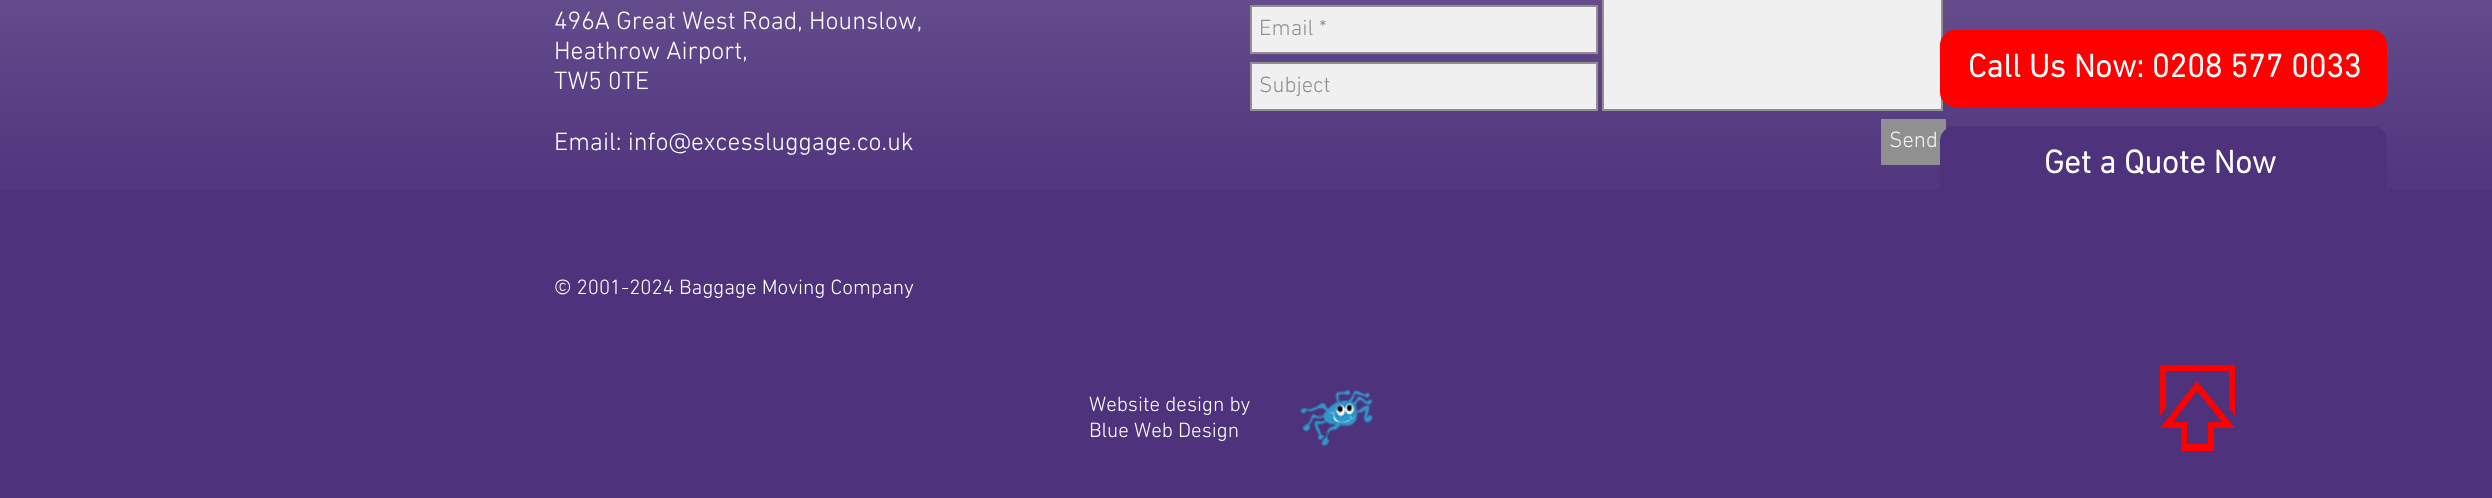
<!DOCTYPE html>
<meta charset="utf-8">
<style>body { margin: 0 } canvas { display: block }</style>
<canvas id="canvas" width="2492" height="498"></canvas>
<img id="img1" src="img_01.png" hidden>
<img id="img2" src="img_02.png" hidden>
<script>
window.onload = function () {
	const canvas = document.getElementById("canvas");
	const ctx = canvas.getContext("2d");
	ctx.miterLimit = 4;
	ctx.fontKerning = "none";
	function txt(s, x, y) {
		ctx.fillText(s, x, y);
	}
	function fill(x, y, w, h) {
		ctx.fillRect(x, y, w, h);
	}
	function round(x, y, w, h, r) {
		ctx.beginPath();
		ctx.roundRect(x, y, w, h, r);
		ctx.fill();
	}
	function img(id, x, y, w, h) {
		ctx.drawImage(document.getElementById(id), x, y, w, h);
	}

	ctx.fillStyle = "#4E327C";
	fill(0, 0, 2492, 498);
	img("img1", 0, 0, 2492, 190);
	ctx.fillStyle = "#F0F0F0";
	ctx.beginPath();
	ctx.rect(1251, 6, 346, 47);
	ctx.fill();
	ctx.strokeStyle = "#909090";
	ctx.lineWidth = 2;
	ctx.stroke();
	ctx.beginPath();
	ctx.rect(1603, -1, 339, 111);
	ctx.fill();
	ctx.stroke();
	ctx.beginPath();
	ctx.rect(1251, 63, 346, 47);
	ctx.fill();
	ctx.stroke();
	ctx.fillStyle = "#909090";
	fill(1881, 119, 65, 46);
	img("img2", 1300, 389, 73, 57);
	ctx.fillStyle = "#FF0000";
	round(1940, 30, 447, 77, 15);
	ctx.fillStyle = "#4E327C";
	round(1940, 126, 447, 77, 15);
	ctx.fillStyle = "#FF0000";
	ctx.beginPath();
	ctx.moveTo(2235, 428);
	ctx.lineTo(2214, 428);
	ctx.lineTo(2214, 451);
	ctx.lineTo(2181, 451);
	ctx.lineTo(2181, 428);
	ctx.lineTo(2160, 428);
	ctx.lineTo(2197, 381);
	ctx.closePath();
	ctx.moveTo(2208, 444);
	ctx.lineTo(2208, 422);
	ctx.lineTo(2222, 422);
	ctx.lineTo(2197, 391);
	ctx.lineTo(2173, 422);
	ctx.lineTo(2187, 422);
	ctx.lineTo(2187, 444);
	ctx.closePath();
	ctx.fill();
	ctx.beginPath();
	ctx.moveTo(2160, 416);
	ctx.lineTo(2166, 408);
	ctx.lineTo(2166, 371);
	ctx.lineTo(2229, 371);
	ctx.lineTo(2229, 408);
	ctx.lineTo(2235, 416);
	ctx.lineTo(2235, 365);
	ctx.lineTo(2160, 365);
	ctx.closePath();
	ctx.fill();
	ctx.font = "300 25.5px 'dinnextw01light'";
	ctx.fillStyle = "#FFFFFF";
	txt("496A Great West Road, Hounslow,", 554, 29);
	txt("Heathrow Airport,", 554, 59);
	txt("TW5 0TE", 554, 89);
	txt("Email: info@excessluggage.co.uk", 554, 150);
	ctx.font = "300 22.5px 'dinnextw01light'";
	ctx.fillStyle = "#909090";
	txt("Email *", 1259, 35);
	txt("Subject", 1259, 92);
	ctx.fillStyle = "#F0F0F0";
	txt("Send", 1889, 147);
	ctx.font = "300 21px 'dinnextw01light'";
	ctx.fillStyle = "#FFFFFF";
	txt("© 2001-2024 Baggage Moving Company", 554, 294);
	txt("Website design by", 1089, 411);
	txt("Blue Web Design", 1089, 437);
	ctx.font = "bold 33px 'dinnextw01light'";
	txt("Call Us Now: 0208 577 0033", 1968, 77);
	txt("Get a Quote Now", 2044, 173);
};
</script>
